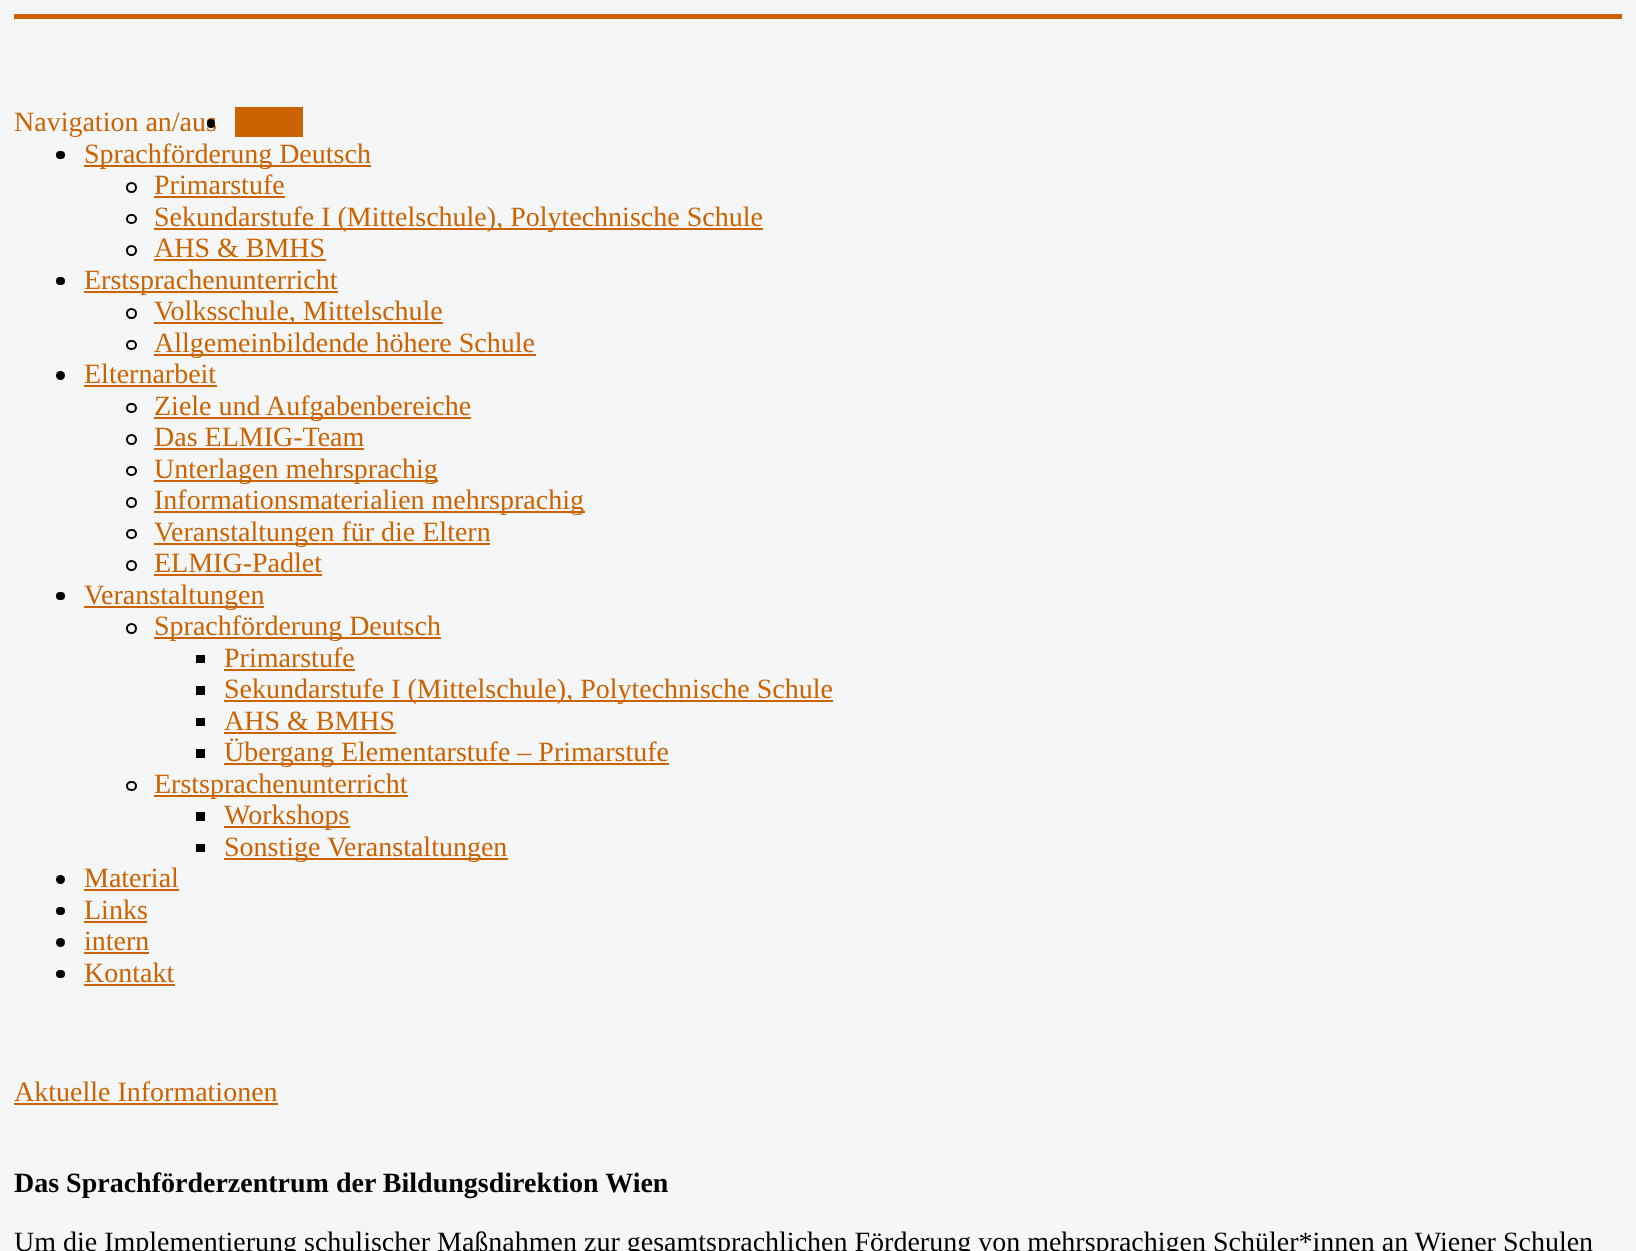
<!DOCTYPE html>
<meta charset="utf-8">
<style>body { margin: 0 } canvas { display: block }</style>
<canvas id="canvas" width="1636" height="1251"></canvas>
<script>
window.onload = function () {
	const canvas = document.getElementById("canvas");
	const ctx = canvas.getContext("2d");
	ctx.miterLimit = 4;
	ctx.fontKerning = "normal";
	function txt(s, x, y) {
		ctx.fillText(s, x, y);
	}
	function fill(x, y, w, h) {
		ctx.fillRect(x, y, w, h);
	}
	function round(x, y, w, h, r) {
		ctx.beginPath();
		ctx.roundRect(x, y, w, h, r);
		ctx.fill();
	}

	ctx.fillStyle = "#F4F6F7";
	fill(0, 0, 1636, 1251);
	ctx.fillStyle = "#CC6300";
	fill(14, 14, 1608, 5);
	fill(235, 107, 68, 30);
	ctx.fillStyle = "#000000";
	round(56, 151, 9, 8, 4);
	ctx.fillStyle = "#CC6300";
	fill(84, 165, 287, 2);
	ctx.beginPath();
	ctx.arc(131.5, 187.5, 4.5, 0, Math.PI * 2);
	ctx.strokeStyle = "#000000";
	ctx.lineWidth = 2;
	ctx.stroke();
	fill(154, 196, 131, 2);
	ctx.beginPath();
	ctx.roundRect(127, 215, 9, 8, 4);
	ctx.stroke();
	fill(154, 228, 609, 2);
	ctx.beginPath();
	ctx.arc(131.5, 250.5, 4.5, 0, Math.PI * 2);
	ctx.stroke();
	fill(154, 259, 172, 2);
	ctx.fillStyle = "#000000";
	round(56, 277, 9, 8, 4);
	ctx.fillStyle = "#CC6300";
	fill(84, 291, 254, 2);
	ctx.beginPath();
	ctx.arc(131.5, 313.5, 4.5, 0, Math.PI * 2);
	ctx.stroke();
	fill(154, 322, 289, 2);
	ctx.beginPath();
	ctx.roundRect(127, 341, 9, 8, 4);
	ctx.stroke();
	fill(154, 354, 382, 2);
	ctx.fillStyle = "#000000";
	ctx.beginPath();
	ctx.arc(60.5, 375.5, 4.5, 0, Math.PI * 2);
	ctx.fill();
	ctx.fillStyle = "#CC6300";
	fill(84, 385, 133, 2);
	ctx.beginPath();
	ctx.roundRect(127, 404, 9, 8, 4);
	ctx.stroke();
	fill(154, 417, 317, 2);
	ctx.beginPath();
	ctx.arc(131.5, 439.5, 4.5, 0, Math.PI * 2);
	ctx.stroke();
	fill(154, 448, 210, 2);
	ctx.beginPath();
	ctx.roundRect(127, 467, 9, 8, 4);
	ctx.stroke();
	fill(154, 480, 284, 2);
	ctx.beginPath();
	ctx.arc(131.5, 502.5, 4.5, 0, Math.PI * 2);
	ctx.stroke();
	fill(154, 511, 431, 2);
	ctx.beginPath();
	ctx.roundRect(127, 530, 9, 8, 4);
	ctx.stroke();
	fill(154, 543, 336, 2);
	ctx.beginPath();
	ctx.arc(131.5, 565.5, 4.5, 0, Math.PI * 2);
	ctx.stroke();
	fill(154, 574, 168, 2);
	ctx.fillStyle = "#000000";
	round(56, 592, 9, 8, 4);
	ctx.fillStyle = "#CC6300";
	fill(84, 606, 180, 2);
	ctx.beginPath();
	ctx.arc(131.5, 628.5, 4.5, 0, Math.PI * 2);
	ctx.stroke();
	fill(154, 637, 287, 2);
	ctx.fillStyle = "#000000";
	fill(196, 655, 9, 8);
	ctx.fillStyle = "#CC6300";
	fill(224, 669, 131, 2);
	ctx.fillStyle = "#000000";
	fill(196, 686, 9, 9);
	ctx.fillStyle = "#CC6300";
	fill(224, 700, 609, 2);
	ctx.fillStyle = "#000000";
	fill(196, 718, 9, 8);
	ctx.fillStyle = "#CC6300";
	fill(224, 732, 172, 2);
	ctx.fillStyle = "#000000";
	fill(196, 749, 9, 9);
	ctx.fillStyle = "#CC6300";
	fill(224, 763, 445, 2);
	ctx.beginPath();
	ctx.roundRect(127, 782, 9, 8, 4);
	ctx.stroke();
	fill(154, 795, 254, 2);
	ctx.fillStyle = "#000000";
	fill(196, 812, 9, 9);
	ctx.fillStyle = "#CC6300";
	fill(224, 826, 126, 2);
	ctx.fillStyle = "#000000";
	fill(196, 844, 9, 8);
	ctx.fillStyle = "#CC6300";
	fill(224, 858, 284, 2);
	ctx.fillStyle = "#000000";
	ctx.beginPath();
	ctx.arc(60.5, 879.5, 4.5, 0, Math.PI * 2);
	ctx.fill();
	ctx.fillStyle = "#CC6300";
	fill(84, 889, 95, 2);
	ctx.fillStyle = "#000000";
	round(56, 907, 9, 8, 4);
	ctx.fillStyle = "#CC6300";
	fill(84, 921, 63, 2);
	ctx.fillStyle = "#000000";
	ctx.beginPath();
	ctx.arc(60.5, 942.5, 4.5, 0, Math.PI * 2);
	ctx.fill();
	ctx.fillStyle = "#CC6300";
	fill(84, 952, 65, 2);
	ctx.fillStyle = "#000000";
	round(56, 970, 9, 8, 4);
	ctx.fillStyle = "#CC6300";
	fill(84, 984, 91, 2);
	fill(14, 1103, 264, 2);
	ctx.font = "28px Liberation Serif";
	txt("Navigation an/aus", 14, 131);
	ctx.fillStyle = "#000000";
	round(207, 119, 8, 9, 4);
	ctx.fillStyle = "#CC6300";
	txt("Sprachförderung Deutsch", 84, 163);
	txt("Primarstufe", 154, 194);
	txt("Sekundarstufe I (Mittelschule), Polytechnische Schule", 154, 226);
	txt("AHS & BMHS", 154, 257);
	txt("Erstsprachenunterricht", 84, 289);
	txt("Volksschule, Mittelschule", 154, 320);
	txt("Allgemeinbildende höhere Schule", 154, 352);
	txt("Elternarbeit", 84, 383);
	txt("Ziele und Aufgabenbereiche", 154, 415);
	txt("Das ELMIG-Team", 154, 446);
	txt("Unterlagen mehrsprachig", 154, 478);
	txt("Informationsmaterialien mehrsprachig", 154, 509);
	txt("Veranstaltungen für die Eltern", 154, 541);
	txt("ELMIG-Padlet", 154, 572);
	txt("Veranstaltungen", 84, 604);
	txt("Sprachförderung Deutsch", 154, 635);
	txt("Primarstufe", 224, 667);
	txt("Sekundarstufe I (Mittelschule), Polytechnische Schule", 224, 698);
	txt("AHS & BMHS", 224, 730);
	txt("Übergang Elementarstufe – Primarstufe", 224, 761);
	txt("Erstsprachenunterricht", 154, 793);
	txt("Workshops", 224, 824);
	txt("Sonstige Veranstaltungen", 224, 856);
	txt("Material", 84, 887);
	txt("Links", 84, 919);
	txt("intern", 84, 950);
	txt("Kontakt", 84, 982);
	txt("Aktuelle Informationen", 14, 1101);
	ctx.font = "bold 28px Liberation Serif";
	ctx.fillStyle = "#000000";
	txt("Das Sprachförderzentrum der Bildungsdirektion Wien", 14, 1192);
	ctx.font = "28px Liberation Serif";
	txt("Um die Implementierung schulischer Maßnahmen zur gesamtsprachlichen Förderung von mehrsprachigen Schüler*innen an Wiener Schulen", 14, 1251);
};
</script>
